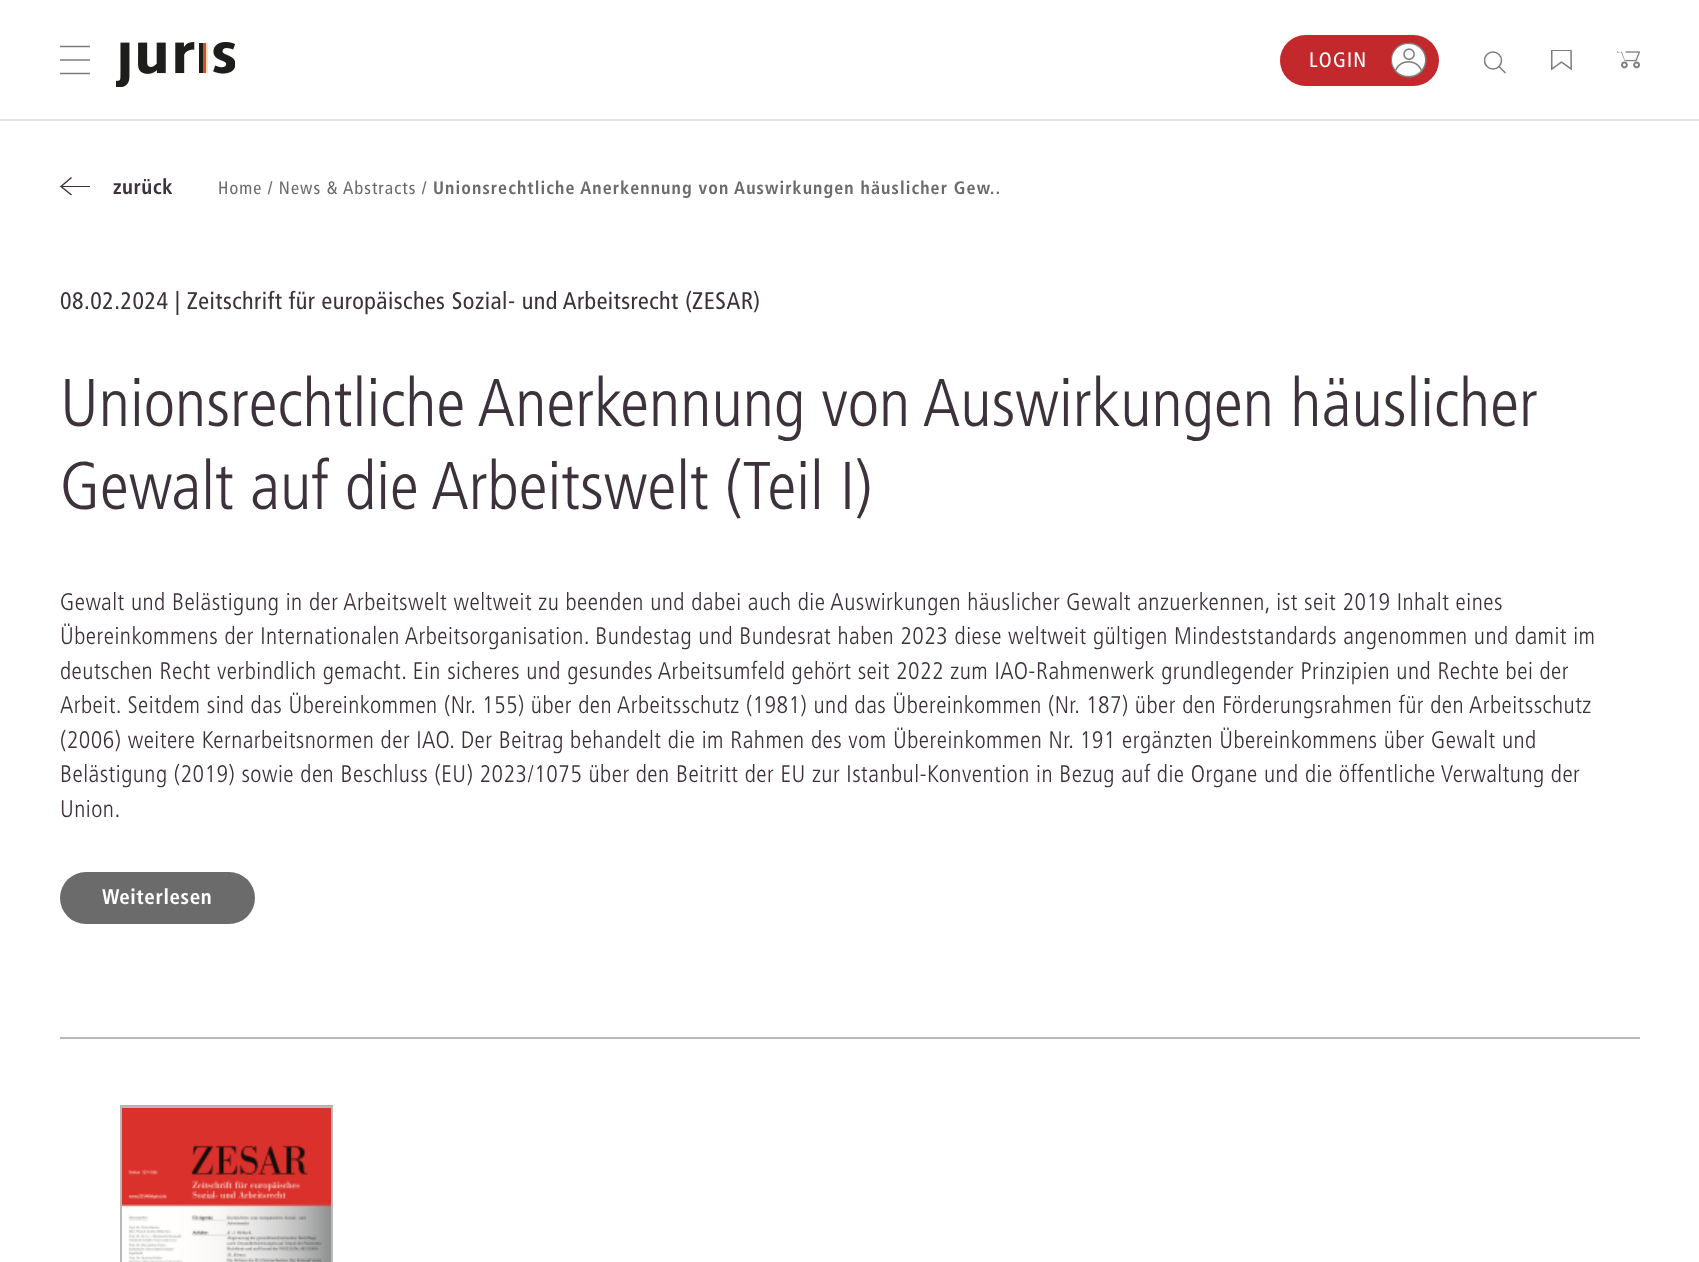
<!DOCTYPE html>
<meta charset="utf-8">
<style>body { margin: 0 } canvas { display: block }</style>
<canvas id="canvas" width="1699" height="1262"></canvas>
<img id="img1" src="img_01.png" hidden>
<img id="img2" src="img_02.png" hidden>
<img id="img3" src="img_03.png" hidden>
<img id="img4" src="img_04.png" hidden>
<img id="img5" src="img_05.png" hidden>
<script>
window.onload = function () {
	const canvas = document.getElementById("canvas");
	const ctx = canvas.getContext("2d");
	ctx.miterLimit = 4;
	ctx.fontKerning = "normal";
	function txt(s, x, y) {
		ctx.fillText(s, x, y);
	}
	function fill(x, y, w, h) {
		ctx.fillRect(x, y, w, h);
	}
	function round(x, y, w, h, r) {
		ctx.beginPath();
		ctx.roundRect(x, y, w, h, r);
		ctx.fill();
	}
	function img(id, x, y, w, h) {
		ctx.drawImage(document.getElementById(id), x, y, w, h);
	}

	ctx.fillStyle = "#FFFFFF";
	fill(0, 0, 1699, 1262);
	ctx.beginPath();
	ctx.moveTo(60, 46.5);
	ctx.lineTo(90, 46.5);
	ctx.strokeStyle = "#7E7D7D";
	ctx.lineWidth = 1.5;
	ctx.stroke();
	ctx.fillStyle = "#9E9E9E";
	fill(60, 59, 30, 2);
	ctx.beginPath();
	ctx.moveTo(60, 73.5);
	ctx.lineTo(90, 73.5);
	ctx.stroke();
	img("img1", 116, 42, 119, 45);
	ctx.fillStyle = "#C3282C";
	round(1280, 35, 159, 51, 25.5);
	img("img2", 1391, 42, 36, 36);
	ctx.save();
	ctx.beginPath();
	ctx.rect(1484, 51, 22, 23);
	ctx.clip();
	ctx.beginPath();
	ctx.arc(1493, 60.5, 8.5, 0, Math.PI * 2);
	ctx.stroke();
	ctx.restore();
	ctx.beginPath();
	ctx.moveTo(1505.5, 73);
	ctx.lineTo(1498.5, 66);
	ctx.stroke();
	img("img3", 1551, 50, 21, 21);
	img("img4", 1617, 51, 23, 18);
	ctx.fillStyle = "#E5E2E2";
	fill(0, 119, 1699, 2);
	ctx.fillStyle = "#3D323B";
	fill(61, 186, 29, 1);
	ctx.beginPath();
	ctx.moveTo(71.5, 177.5);
	ctx.lineTo(61, 186.5);
	ctx.lineTo(71.5, 195);
	ctx.strokeStyle = "#3D323B";
	ctx.lineWidth = 1.4;
	ctx.stroke();
	ctx.fillStyle = "#6B6B6B";
	round(60, 872, 195, 52, 26);
	ctx.fillStyle = "#B9B9BA";
	fill(60, 1037, 1580, 2);
	img("img5", 120, 1105, 213, 157);
	ctx.strokeStyle = "#B9B9BA";
	ctx.lineWidth = 2;
	ctx.strokeRect(121, 1107, 211, 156);
	ctx.letterSpacing = "1.25px";
	ctx.font = "21px Frutiger";
	ctx.fillStyle = "#FFFFFF";
	txt("LOGIN", 1309, 67);
	ctx.letterSpacing = "0.5px";
	ctx.font = "bold 21px Frutiger";
	ctx.fillStyle = "#3D323B";
	txt("zurück", 113, 194);
	ctx.letterSpacing = "1.08px";
	ctx.font = "18px Frutiger";
	ctx.fillStyle = "#6B6B6B";
	txt("Home / News & Abstracts /", 218, 194);
	ctx.font = "bold 18px Frutiger";
	txt("Unionsrechtliche Anerkennung von Auswirkungen häuslicher Gew..", 433, 194);
	ctx.letterSpacing = "0.48px";
	ctx.font = "24px Frutiger";
	ctx.fillStyle = "#3D323B";
	txt("08.02.2024 | Zeitschrift für europäisches Sozial- und Arbeitsrecht (ZESAR)", 60, 309);
	ctx.letterSpacing = "0px";
	ctx.font = "300 67.5px Frutiger";
	txt("Unionsrechtliche Anerkennung von Auswirkungen häuslicher", 60, 426);
	txt("Gewalt auf die Arbeitswelt (Teil I)", 60, 509);
	ctx.letterSpacing = "0.48px";
	ctx.font = "300 24px Frutiger";
	txt("Gewalt und Belästigung in der Arbeitswelt weltweit zu beenden und dabei auch die Auswirkungen häuslicher Gewalt anzuerkennen, ist seit 2019 Inhalt eines", 60, 610);
	txt("Übereinkommens der Internationalen Arbeitsorganisation. Bundestag und Bundesrat haben 2023 diese weltweit gültigen Mindeststandards angenommen und damit im", 60, 644);
	txt("deutschen Recht verbindlich gemacht. Ein sicheres und gesundes Arbeitsumfeld gehört seit 2022 zum IAO-Rahmenwerk grundlegender Prinzipien und Rechte bei der", 60, 679);
	txt("Arbeit. Seitdem sind das Übereinkommen (Nr. 155) über den Arbeitsschutz (1981) und das Übereinkommen (Nr. 187) über den Förderungsrahmen für den Arbeitsschutz", 60, 713);
	txt("(2006) weitere Kernarbeitsnormen der IAO. Der Beitrag behandelt die im Rahmen des vom Übereinkommen Nr. 191 ergänzten Übereinkommens über Gewalt und", 60, 748);
	txt("Belästigung (2019) sowie den Beschluss (EU) 2023/1075 über den Beitritt der EU zur Istanbul-Konvention in Bezug auf die Organe und die öffentliche Verwaltung der", 60, 782);
	txt("Union.", 60, 817);
	ctx.letterSpacing = "0.6px";
	ctx.font = "bold 21px Frutiger";
	ctx.fillStyle = "#FFFFFF";
	txt("Weiterlesen", 102, 904);
};
</script>
